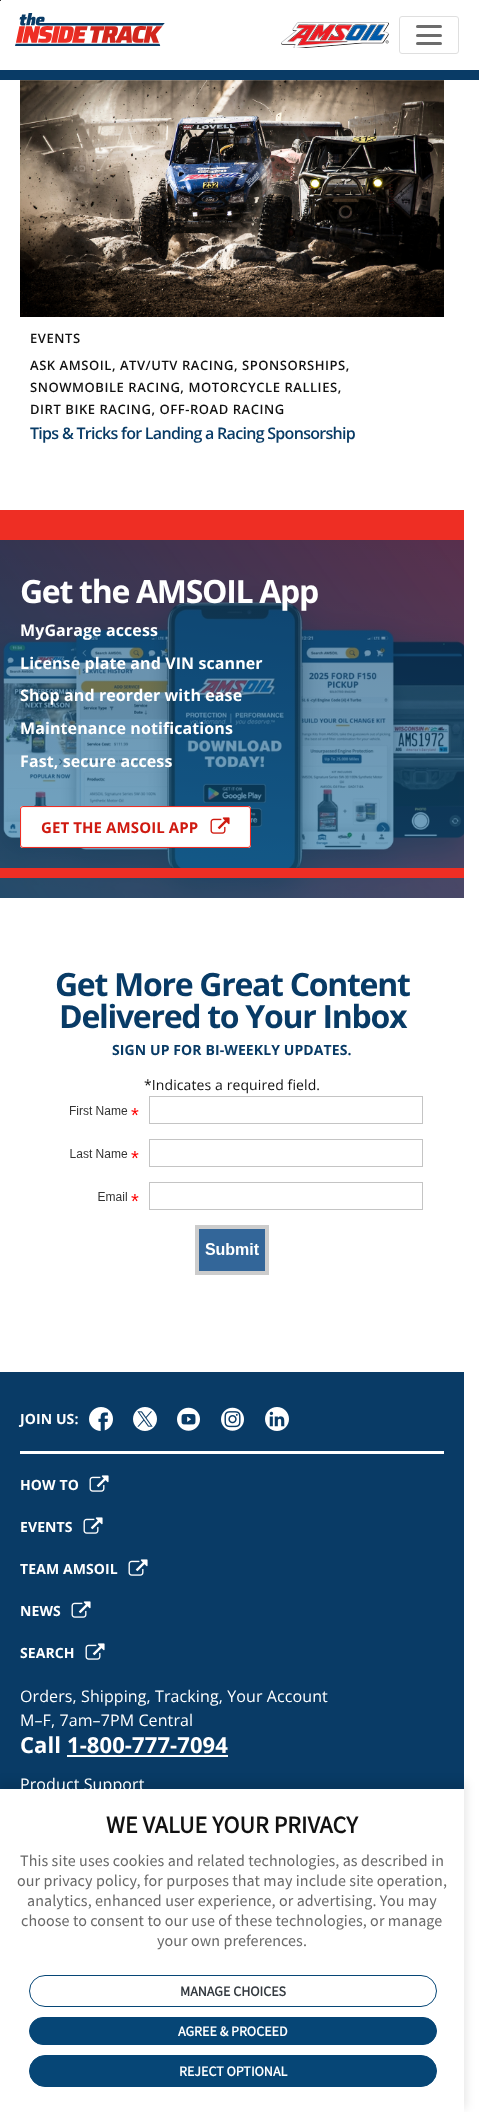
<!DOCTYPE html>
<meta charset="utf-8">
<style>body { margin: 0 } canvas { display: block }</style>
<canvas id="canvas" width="479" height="2112"></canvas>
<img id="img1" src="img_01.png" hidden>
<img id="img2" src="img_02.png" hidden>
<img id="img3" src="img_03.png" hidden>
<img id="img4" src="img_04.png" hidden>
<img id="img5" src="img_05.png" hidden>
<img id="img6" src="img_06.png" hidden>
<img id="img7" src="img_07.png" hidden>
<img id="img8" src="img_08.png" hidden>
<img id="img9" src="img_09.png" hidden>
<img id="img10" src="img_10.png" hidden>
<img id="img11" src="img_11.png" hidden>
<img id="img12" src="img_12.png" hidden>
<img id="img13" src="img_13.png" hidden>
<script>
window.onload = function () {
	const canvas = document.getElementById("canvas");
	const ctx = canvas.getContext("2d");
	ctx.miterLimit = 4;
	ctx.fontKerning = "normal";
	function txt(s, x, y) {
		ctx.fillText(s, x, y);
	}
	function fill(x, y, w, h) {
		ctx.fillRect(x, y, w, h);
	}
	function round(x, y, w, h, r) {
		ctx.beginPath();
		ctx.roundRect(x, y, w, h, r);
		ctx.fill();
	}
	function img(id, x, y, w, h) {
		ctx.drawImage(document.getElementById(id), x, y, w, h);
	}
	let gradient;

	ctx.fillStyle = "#FFFFFF";
	fill(0, 0, 479, 2112);
	ctx.fillStyle = "#333333";
	fill(0, 0, 1, 1);
	ctx.fillStyle = "#093B66";
	fill(0, 70, 479, 10);
	img("img1", 15, 13, 150, 33);
	img("img2", 281, 22, 108, 26);
	ctx.beginPath();
	ctx.roundRect(399.5, 16.5, 59, 37, 2.5);
	ctx.strokeStyle = "#DFDFDF";
	ctx.stroke();
	ctx.fillStyle = "#6C6C6C";
	round(416, 25, 26, 3, 1.5);
	round(416, 34, 26, 3, 1.5);
	round(416, 42, 26, 3, 1.5);
	img("img3", 20, 80, 424, 237);
	img("img4", 20, 80, 424, 1);
	gradient = ctx.createLinearGradient(201, 926, 263, 482);
	gradient.addColorStop(0, "#156D9F");
	gradient.addColorStop(1, "#083B66");
	ctx.fillStyle = gradient;
	fill(0, 540, 464, 358);
	ctx.fillStyle = "#EE2E24";
	fill(0, 510, 464, 30);
	img("img5", 0, 540, 464, 358);
	ctx.fillStyle = "#FFFFFF";
	round(20, 806, 231, 42, 3);
	ctx.beginPath();
	ctx.roundRect(21.05, 807.05, 228.9, 39.9, 1.95);
	ctx.strokeStyle = "#EE2E24";
	ctx.lineWidth = 0.1;
	ctx.stroke();
	ctx.beginPath();
	ctx.roundRect(20.5, 806.5, 230, 41, 2.5);
	ctx.lineWidth = 1;
	ctx.stroke();
	img("img6", 210, 817, 20, 17);
	ctx.fillStyle = "#EE2E24";
	fill(0, 868, 464, 10);
	img("img7", 70, 1096, 353, 179);
	ctx.fillStyle = "#093B66";
	fill(0, 1372, 464, 417);
	ctx.fillStyle = "#FFFFFF";
	fill(20, 1451, 424, 3);
	img("img8", 89, 1407, 24, 24);
	img("img9", 133, 1407, 24, 24);
	img("img10", 177, 1407, 23, 24);
	img("img11", 221, 1407, 23, 24);
	img("img12", 265, 1407, 24, 24);
	img("img13", 89, 1475, 20, 17);
	img("img13", 83, 1517, 20, 17);
	img("img13", 128, 1559, 20, 17);
	img("img13", 71, 1601, 20, 17);
	img("img13", 85, 1643, 20, 17);
	fill(67, 1755, 161, 2);
	ctx.fillStyle = "rgba(0, 0, 0, 0.1)";
	ctx.filter = "blur(5px)";
	ctx.beginPath();
	ctx.rect(-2, 1782, 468, 327);
	ctx.fill();
	ctx.filter = "none";
	ctx.fillStyle = "#FFFFFF";
	fill(0, 1789, 464, 323);
	ctx.beginPath();
	ctx.roundRect(29.5, 1975.5, 407, 31, 15.5);
	ctx.strokeStyle = "#064676";
	ctx.stroke();
	ctx.fillStyle = "#064676";
	ctx.beginPath();
	ctx.roundRect(29.5, 2017.5, 407, 27, 13.5);
	ctx.fill();
	ctx.stroke();
	ctx.beginPath();
	ctx.roundRect(29.5, 2055.5, 407, 31, 15.5);
	ctx.fill();
	ctx.stroke();
	ctx.letterSpacing = "0.55px";
	ctx.font = "600 13px Open Sans";
	ctx.fillStyle = "#111111";
	txt("EVENTS", 30, 343);
	txt("ASK AMSOIL, ATV/UTV RACING, SPONSORSHIPS,", 30, 370);
	txt("SNOWMOBILE RACING, MOTORCYCLE RALLIES,", 30, 392);
	txt("DIRT BIKE RACING, OFF-ROAD RACING", 30, 414);
	ctx.letterSpacing = "-0.7px";
	ctx.font = "600 16px Open Sans";
	ctx.fillStyle = "#083B66";
	txt("Tips & Tricks for Landing a Racing Sponsorship", 30, 439);
	ctx.letterSpacing = "-1.3px";
	ctx.font = "bold 32px Open Sans";
	ctx.fillStyle = "#FFFFFF";
	txt("Get the AMSOIL App", 20, 603);
	ctx.letterSpacing = "0.1px";
	ctx.font = "bold 16px Open Sans";
	txt("MyGarage access", 20, 636);
	txt("License plate and VIN scanner", 20, 669);
	txt("Shop and reorder with ease", 20, 701);
	txt("Maintenance notifications", 20, 734);
	txt("Fast, secure access", 20, 767);
	ctx.font = "bold 15px Open Sans";
	ctx.fillStyle = "#CF1A10";
	txt("GET THE AMSOIL APP", 41, 833);
	ctx.letterSpacing = "-1.3px";
	ctx.font = "bold 32px Open Sans";
	ctx.fillStyle = "#083B66";
	txt("Get More Great Content", 55, 996);
	txt("Delivered to Your Inbox", 59, 1028);
	ctx.letterSpacing = "0.1px";
	ctx.font = "bold 14px Open Sans";
	txt("SIGN UP FOR BI-WEEKLY UPDATES.", 112, 1055);
	ctx.font = "14px Open Sans";
	ctx.fillStyle = "#111111";
	txt("*Indicates a required field.", 144, 1090);
	ctx.font = "bold 14px Open Sans";
	ctx.fillStyle = "#FFFFFF";
	txt("JOIN US:", 20, 1424);
	txt("HOW TO", 20, 1490);
	txt("EVENTS", 20, 1532);
	txt("TEAM AMSOIL", 20, 1574);
	txt("NEWS", 20, 1616);
	txt("SEARCH", 20, 1658);
	ctx.font = "16px Open Sans";
	txt("Orders, Shipping, Tracking, Your Account", 20, 1702);
	txt("M–F, 7am–7PM Central", 20, 1726);
	ctx.font = "bold 22px Open Sans";
	txt("Call 1-800-777-7094", 20, 1753);
	ctx.font = "16px Open Sans";
	txt("Product Support", 20, 1790);
	ctx.font = "bold 24px Source Sans Pro";
	ctx.fillStyle = "#111111";
	txt("WE VALUE YOUR PRIVACY", 106, 1833);
	ctx.font = "16px Source Sans Pro";
	ctx.fillStyle = "#696969";
	txt("This site uses cookies and related technologies, as described in", 20, 1866);
	txt("our privacy policy, for purposes that may include site operation,", 17, 1886);
	txt("analytics, enhanced user experience, or advertising. You may", 27, 1906);
	txt("choose to consent to our use of these technologies, or manage", 21, 1926);
	txt("your own preferences.", 157, 1946);
	ctx.letterSpacing = "0px";
	ctx.font = "bold 14px Source Sans Pro";
	ctx.fillStyle = "#343A40";
	txt("MANAGE CHOICES", 180, 1996);
	ctx.fillStyle = "#FFFFFF";
	txt("AGREE & PROCEED", 178, 2036);
	txt("REJECT OPTIONAL", 179, 2076);
};
</script>
